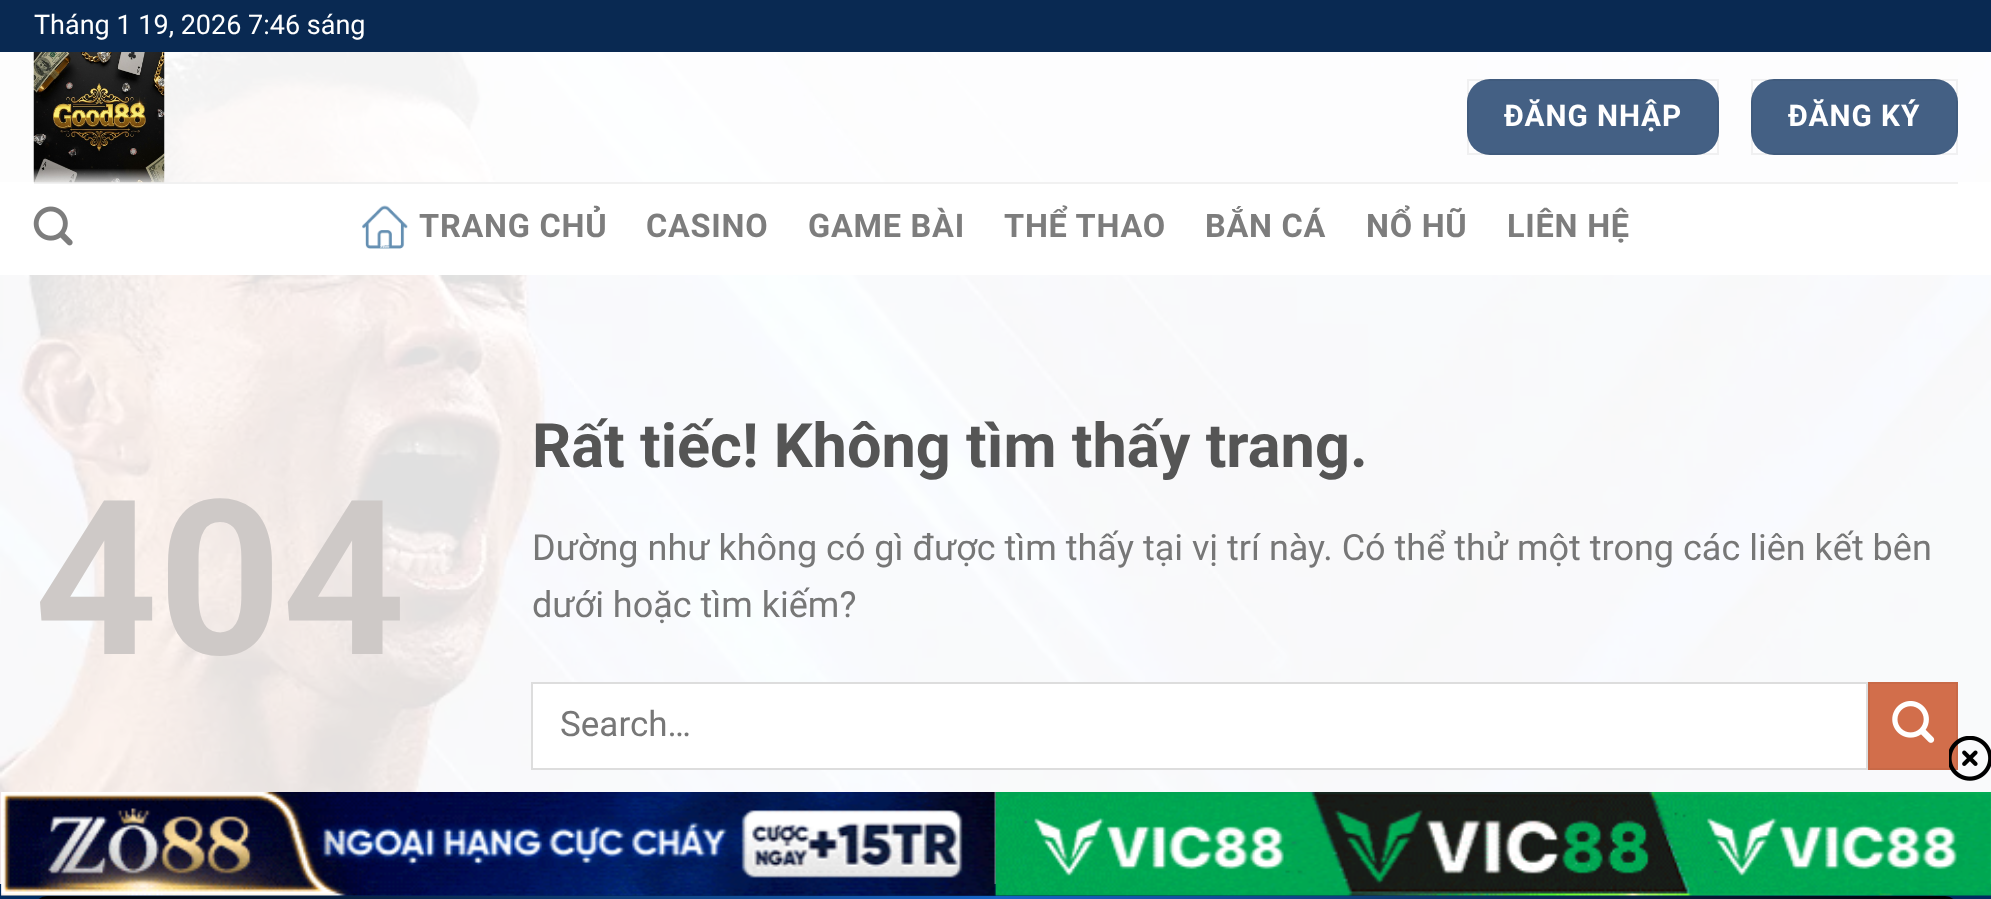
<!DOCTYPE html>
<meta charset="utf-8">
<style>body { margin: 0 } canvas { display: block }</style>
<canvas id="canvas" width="1991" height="899"></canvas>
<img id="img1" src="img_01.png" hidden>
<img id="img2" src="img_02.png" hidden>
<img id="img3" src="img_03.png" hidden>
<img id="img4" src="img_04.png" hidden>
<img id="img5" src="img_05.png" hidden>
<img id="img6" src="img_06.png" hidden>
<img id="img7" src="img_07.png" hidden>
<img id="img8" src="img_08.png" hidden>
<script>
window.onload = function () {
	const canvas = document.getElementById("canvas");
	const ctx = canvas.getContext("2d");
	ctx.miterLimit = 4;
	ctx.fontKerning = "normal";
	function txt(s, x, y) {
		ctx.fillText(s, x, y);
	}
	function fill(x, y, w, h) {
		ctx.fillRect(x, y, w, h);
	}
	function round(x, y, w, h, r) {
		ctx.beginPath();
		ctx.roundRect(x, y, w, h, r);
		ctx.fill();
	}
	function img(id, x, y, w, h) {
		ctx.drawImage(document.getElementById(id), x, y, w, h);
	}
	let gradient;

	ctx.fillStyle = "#FFFFFF";
	fill(0, 0, 1991, 899);
	img("img1", 0, 52, 1991, 832);
	ctx.fillStyle = "#092952";
	fill(0, 0, 1991, 52);
	ctx.fillStyle = "rgba(255, 255, 255, 0.9)";
	fill(0, 52, 1991, 130);
	ctx.fillStyle = "#FFFFFF";
	fill(0, 182, 1991, 93);
	img("img2", 33, 52, 132, 131);
	ctx.fillStyle = "#446084";
	round(1467, 79, 252, 76, 23);
	ctx.strokeStyle = "rgba(0, 0, 0, 0.05)";
	ctx.lineWidth = 2;
	ctx.strokeRect(1468, 80, 250, 74);
	round(1751, 79, 207, 76, 23);
	ctx.strokeRect(1752, 80, 205, 74);
	ctx.fillStyle = "rgba(119, 119, 119, 0.1)";
	fill(34, 182, 1924, 2);
	img("img3", 33, 206, 40, 40);
	img("img4", 362, 205, 46, 44);
	ctx.fillStyle = "rgba(255, 255, 255, 0.5)";
	fill(0, 275, 1991, 609);
	fill(0, 275, 1991, 609);
	ctx.fillStyle = "#FFFFFF";
	ctx.beginPath();
	ctx.rect(532, 683, 1335, 86);
	ctx.fill();
	ctx.strokeStyle = "#DDDDDD";
	ctx.stroke();
	ctx.fillStyle = "#D26E4B";
	ctx.beginPath();
	ctx.rect(1869, 683, 88, 86);
	ctx.fill();
	ctx.strokeStyle = "#C86947";
	ctx.stroke();
	img("img5", 1892, 701, 43, 42);
	ctx.fillStyle = "#002B60";
	fill(0, 884, 1991, 15);
	gradient = ctx.createLinearGradient(34, 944, 1958, 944);
	gradient.addColorStop(0, "#000000");
	gradient.addColorStop(0.5, "#1665C8");
	gradient.addColorStop(1, "#000000");
	ctx.fillStyle = gradient;
	round(34, 896, 1924, 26, 23);
	img("img6", 1949, 736, 42, 45);
	img("img7", 1, 792, 995, 104);
	img("img8", 995, 792, 996, 104);
	ctx.font = "27px Roboto";
	ctx.fillStyle = "#FFFFFF";
	txt("Tháng 1 19, 2026 7:46 sáng", 34, 34);
	ctx.letterSpacing = "1px";
	ctx.font = "bold 29.75px Roboto";
	txt("ĐĂNG NHẬP", 1504, 126);
	txt("ĐĂNG KÝ", 1788, 126);
	ctx.letterSpacing = "0.75px";
	ctx.font = "bold 32.5px Roboto";
	ctx.fillStyle = "#7D7D7D";
	txt("TRANG CHỦ", 419, 237);
	txt("CASINO", 646, 237);
	txt("GAME BÀI", 808, 237);
	txt("THỂ THAO", 1004, 237);
	txt("BẮN CÁ", 1205, 237);
	txt("NỔ HŨ", 1366, 237);
	txt("LIÊN HỆ", 1507, 237);
	ctx.letterSpacing = "0px";
	ctx.font = "bold 216px Roboto";
	ctx.fillStyle = "#CEC9C7";
	txt("404", 34, 654);
	ctx.font = "bold 61.25px Roboto";
	ctx.fillStyle = "#555555";
	txt("Rất tiếc! Không tìm thấy trang.", 532, 467);
	ctx.font = "36px Roboto";
	ctx.fillStyle = "#777777";
	txt("Dường như không có gì được tìm thấy tại vị trí này. Có thể thử một trong các liên kết bên", 532, 560);
	txt("dưới hoặc tìm kiếm?", 532, 617);
	ctx.font = "35px Roboto";
	txt("Search…", 560, 736);
};
</script>
